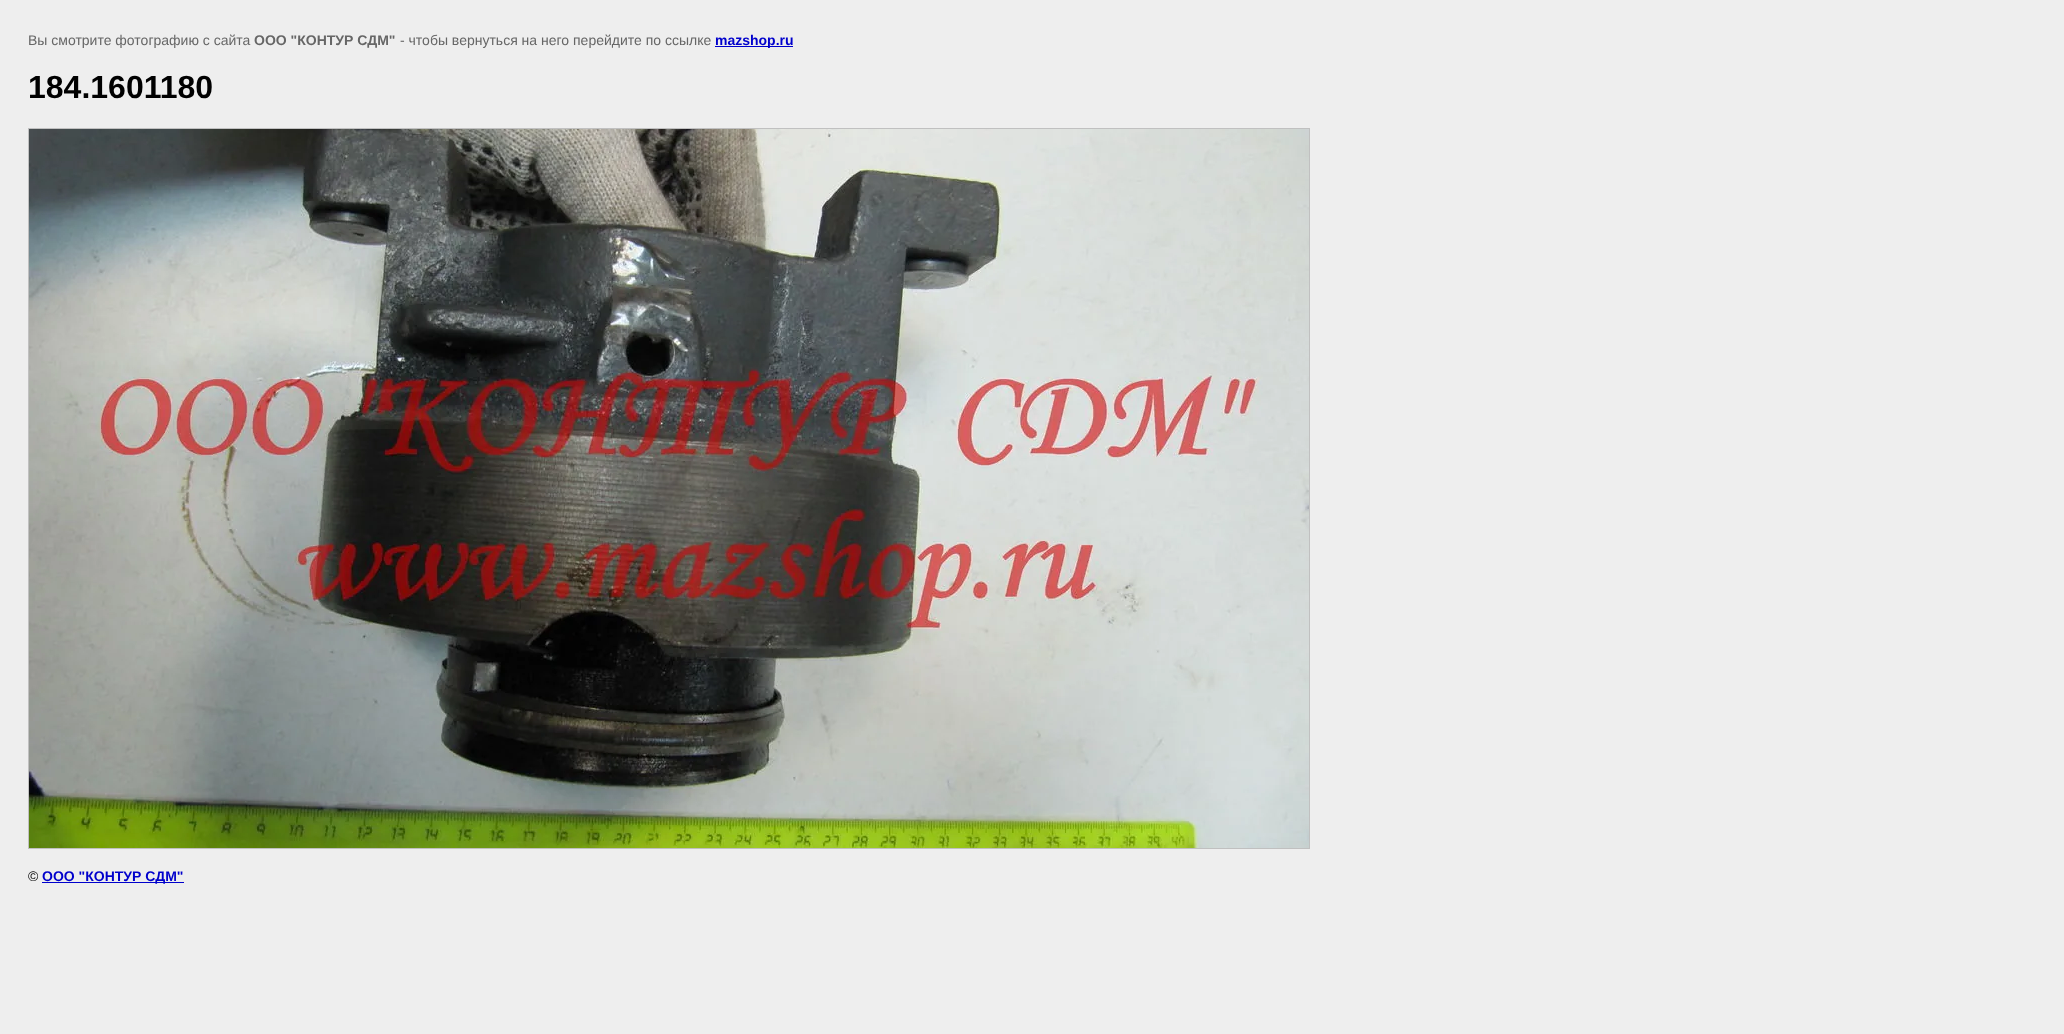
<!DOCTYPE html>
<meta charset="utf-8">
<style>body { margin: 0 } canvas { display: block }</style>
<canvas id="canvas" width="2064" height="1034"></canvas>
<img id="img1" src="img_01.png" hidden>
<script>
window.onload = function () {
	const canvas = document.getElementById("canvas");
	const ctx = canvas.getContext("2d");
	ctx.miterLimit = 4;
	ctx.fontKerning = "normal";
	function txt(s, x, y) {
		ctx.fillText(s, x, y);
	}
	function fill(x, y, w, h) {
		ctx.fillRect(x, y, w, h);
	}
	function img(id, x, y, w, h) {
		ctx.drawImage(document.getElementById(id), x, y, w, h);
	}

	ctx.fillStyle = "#EEEEEE";
	fill(0, 0, 2064, 1034);
	ctx.fillStyle = "#0000CC";
	fill(715, 46, 78, 1);
	ctx.strokeStyle = "#C0C0C0";
	ctx.strokeRect(28.5, 128.5, 1281, 720);
	img("img1", 29, 129, 1280, 719);
	fill(42, 882, 142, 1);
	ctx.font = "14px Liberation Sans";
	ctx.fillStyle = "#666666";
	txt("Вы смотрите фотографию с сайта", 28, 45);
	ctx.font = "bold 14px Liberation Sans";
	txt("ООО \"КОНТУР СДМ\"", 254, 45);
	ctx.font = "14px Liberation Sans";
	txt("- чтобы вернуться на него перейдите по ссылке", 400, 45);
	ctx.font = "bold 14px Liberation Sans";
	ctx.fillStyle = "#0000CC";
	txt("mazshop.ru", 715, 45);
	ctx.font = "bold 32px Liberation Sans";
	ctx.fillStyle = "#000000";
	txt("184.1601180", 28, 98);
	ctx.font = "14px Liberation Sans";
	txt("©", 28, 881);
	ctx.font = "bold 14px Liberation Sans";
	ctx.fillStyle = "#0000CC";
	txt("ООО \"КОНТУР СДМ\"", 42, 881);
};
</script>
